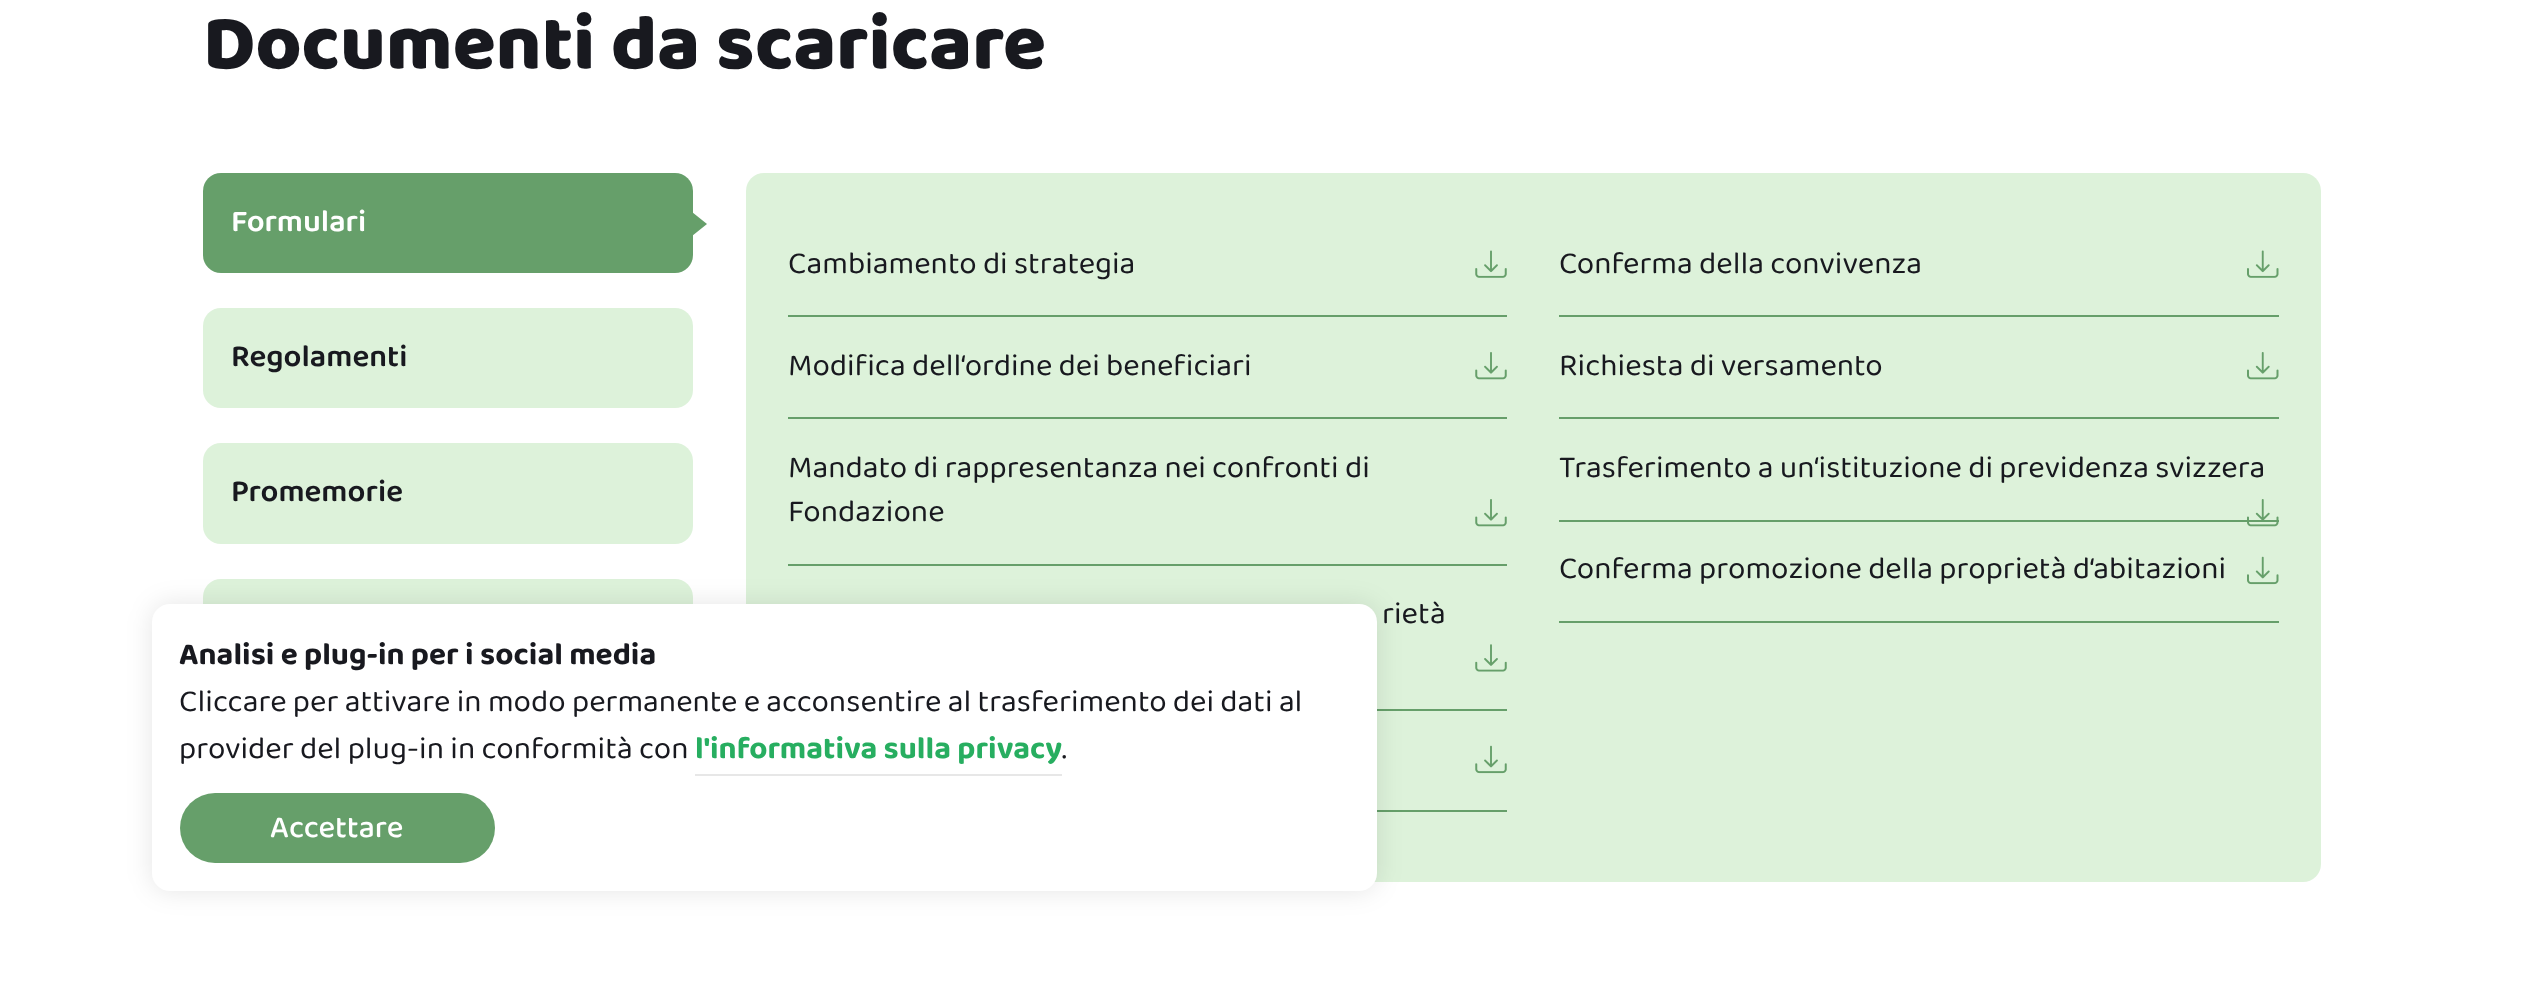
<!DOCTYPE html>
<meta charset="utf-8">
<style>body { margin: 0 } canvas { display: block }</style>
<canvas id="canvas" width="2523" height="989"></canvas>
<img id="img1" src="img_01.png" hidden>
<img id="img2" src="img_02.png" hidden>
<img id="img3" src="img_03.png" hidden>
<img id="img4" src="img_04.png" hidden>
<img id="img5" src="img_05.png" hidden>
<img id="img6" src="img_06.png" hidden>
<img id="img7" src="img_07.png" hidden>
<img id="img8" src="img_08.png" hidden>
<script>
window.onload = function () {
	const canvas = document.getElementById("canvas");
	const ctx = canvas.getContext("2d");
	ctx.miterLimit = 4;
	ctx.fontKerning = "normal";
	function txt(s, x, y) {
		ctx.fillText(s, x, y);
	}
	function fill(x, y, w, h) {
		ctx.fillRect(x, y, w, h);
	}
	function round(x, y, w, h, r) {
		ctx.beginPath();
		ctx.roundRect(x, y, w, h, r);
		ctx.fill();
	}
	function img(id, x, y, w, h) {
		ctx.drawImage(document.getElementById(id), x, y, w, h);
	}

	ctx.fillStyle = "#FFFFFF";
	fill(0, 0, 2523, 989);
	ctx.fillStyle = "#669F6A";
	round(203, 173, 490, 100, 18);
	ctx.beginPath();
	ctx.moveTo(689.5, 238);
	ctx.lineTo(689.5, 210);
	ctx.lineTo(707, 224);
	ctx.closePath();
	ctx.fill();
	ctx.fillStyle = "#DDF2DA";
	round(203, 308, 490, 100, 18);
	round(203, 443, 490, 101, 18);
	round(203, 579, 490, 100, 18);
	round(746, 173, 1575, 709, 18);
	ctx.fillStyle = "#669F6A";
	fill(788, 315, 719, 2);
	img("img1", 1475, 250, 32, 28);
	fill(788, 417, 719, 2);
	img("img2", 1475, 352, 32, 28);
	fill(788, 564, 719, 2);
	img("img2", 1475, 499, 32, 28);
	fill(1377, 709, 130, 2);
	img("img3", 1475, 644, 32, 28);
	fill(1377, 810, 130, 2);
	img("img4", 1475, 745, 32, 29);
	fill(1559, 315, 720, 2);
	img("img5", 2247, 250, 32, 28);
	fill(1559, 417, 720, 2);
	img("img6", 2247, 352, 32, 28);
	fill(1559, 520, 720, 2);
	img("img7", 2247, 499, 32, 28);
	fill(1559, 621, 720, 2);
	img("img8", 2247, 556, 32, 29);
	ctx.fillStyle = "rgba(0, 0, 0, 0.1)";
	ctx.filter = "blur(13px)";
	ctx.beginPath();
	ctx.roundRect(152, 604, 1225, 287, 18);
	ctx.fill();
	ctx.filter = "none";
	ctx.fillStyle = "#FFFFFF";
	round(152, 604, 1225, 287, 18);
	ctx.fillStyle = "#E7E7E7";
	fill(695, 774, 367, 2);
	ctx.fillStyle = "#669F6A";
	round(180, 793, 315, 70, 35);
	ctx.font = "800 78.75px 'Baloo 2'";
	ctx.fillStyle = "#18191F";
	txt("Documenti da scaricare", 203, 68);
	ctx.font = "600 31.5px 'Baloo 2'";
	ctx.fillStyle = "#FFFFFF";
	txt("Formulari", 231, 231);
	ctx.fillStyle = "#18191F";
	txt("Regolamenti", 231, 366);
	txt("Promemorie", 231, 501);
	ctx.font = "31.5px 'Baloo 2'";
	txt("Cambiamento di strategia", 788, 273);
	txt("Modifica dell‘ordine dei beneficiari", 788, 375);
	txt("Mandato di rappresentanza nei confronti di", 788, 477);
	txt("Fondazione", 788, 521);
	txt("rietà", 1382, 623);
	txt("Conferma della convivenza", 1559, 273);
	txt("Richiesta di versamento", 1559, 375);
	txt("Trasferimento a un‘istituzione di previdenza svizzera", 1559, 477);
	txt("Conferma promozione della proprietà d‘abitazioni", 1559, 578);
	ctx.font = "bold 31.5px 'Baloo 2'";
	txt("Analisi e plug-in per i social media", 179, 664);
	ctx.font = "31.5px 'Baloo 2'";
	txt("Cliccare per attivare in modo permanente e acconsentire al trasferimento dei dati al", 179, 711);
	txt("provider del plug-in in conformità con", 179, 758);
	ctx.font = "bold 31.5px 'Baloo 2'";
	ctx.fillStyle = "#27AE60";
	txt("l'informativa sulla privacy", 695, 758);
	ctx.font = "31.5px 'Baloo 2'";
	ctx.fillStyle = "#18191F";
	txt(".", 1062, 758);
	ctx.font = "500 31.5px 'Baloo 2'";
	ctx.fillStyle = "#FFFFFF";
	txt("Accettare", 270, 837);
};
</script>
